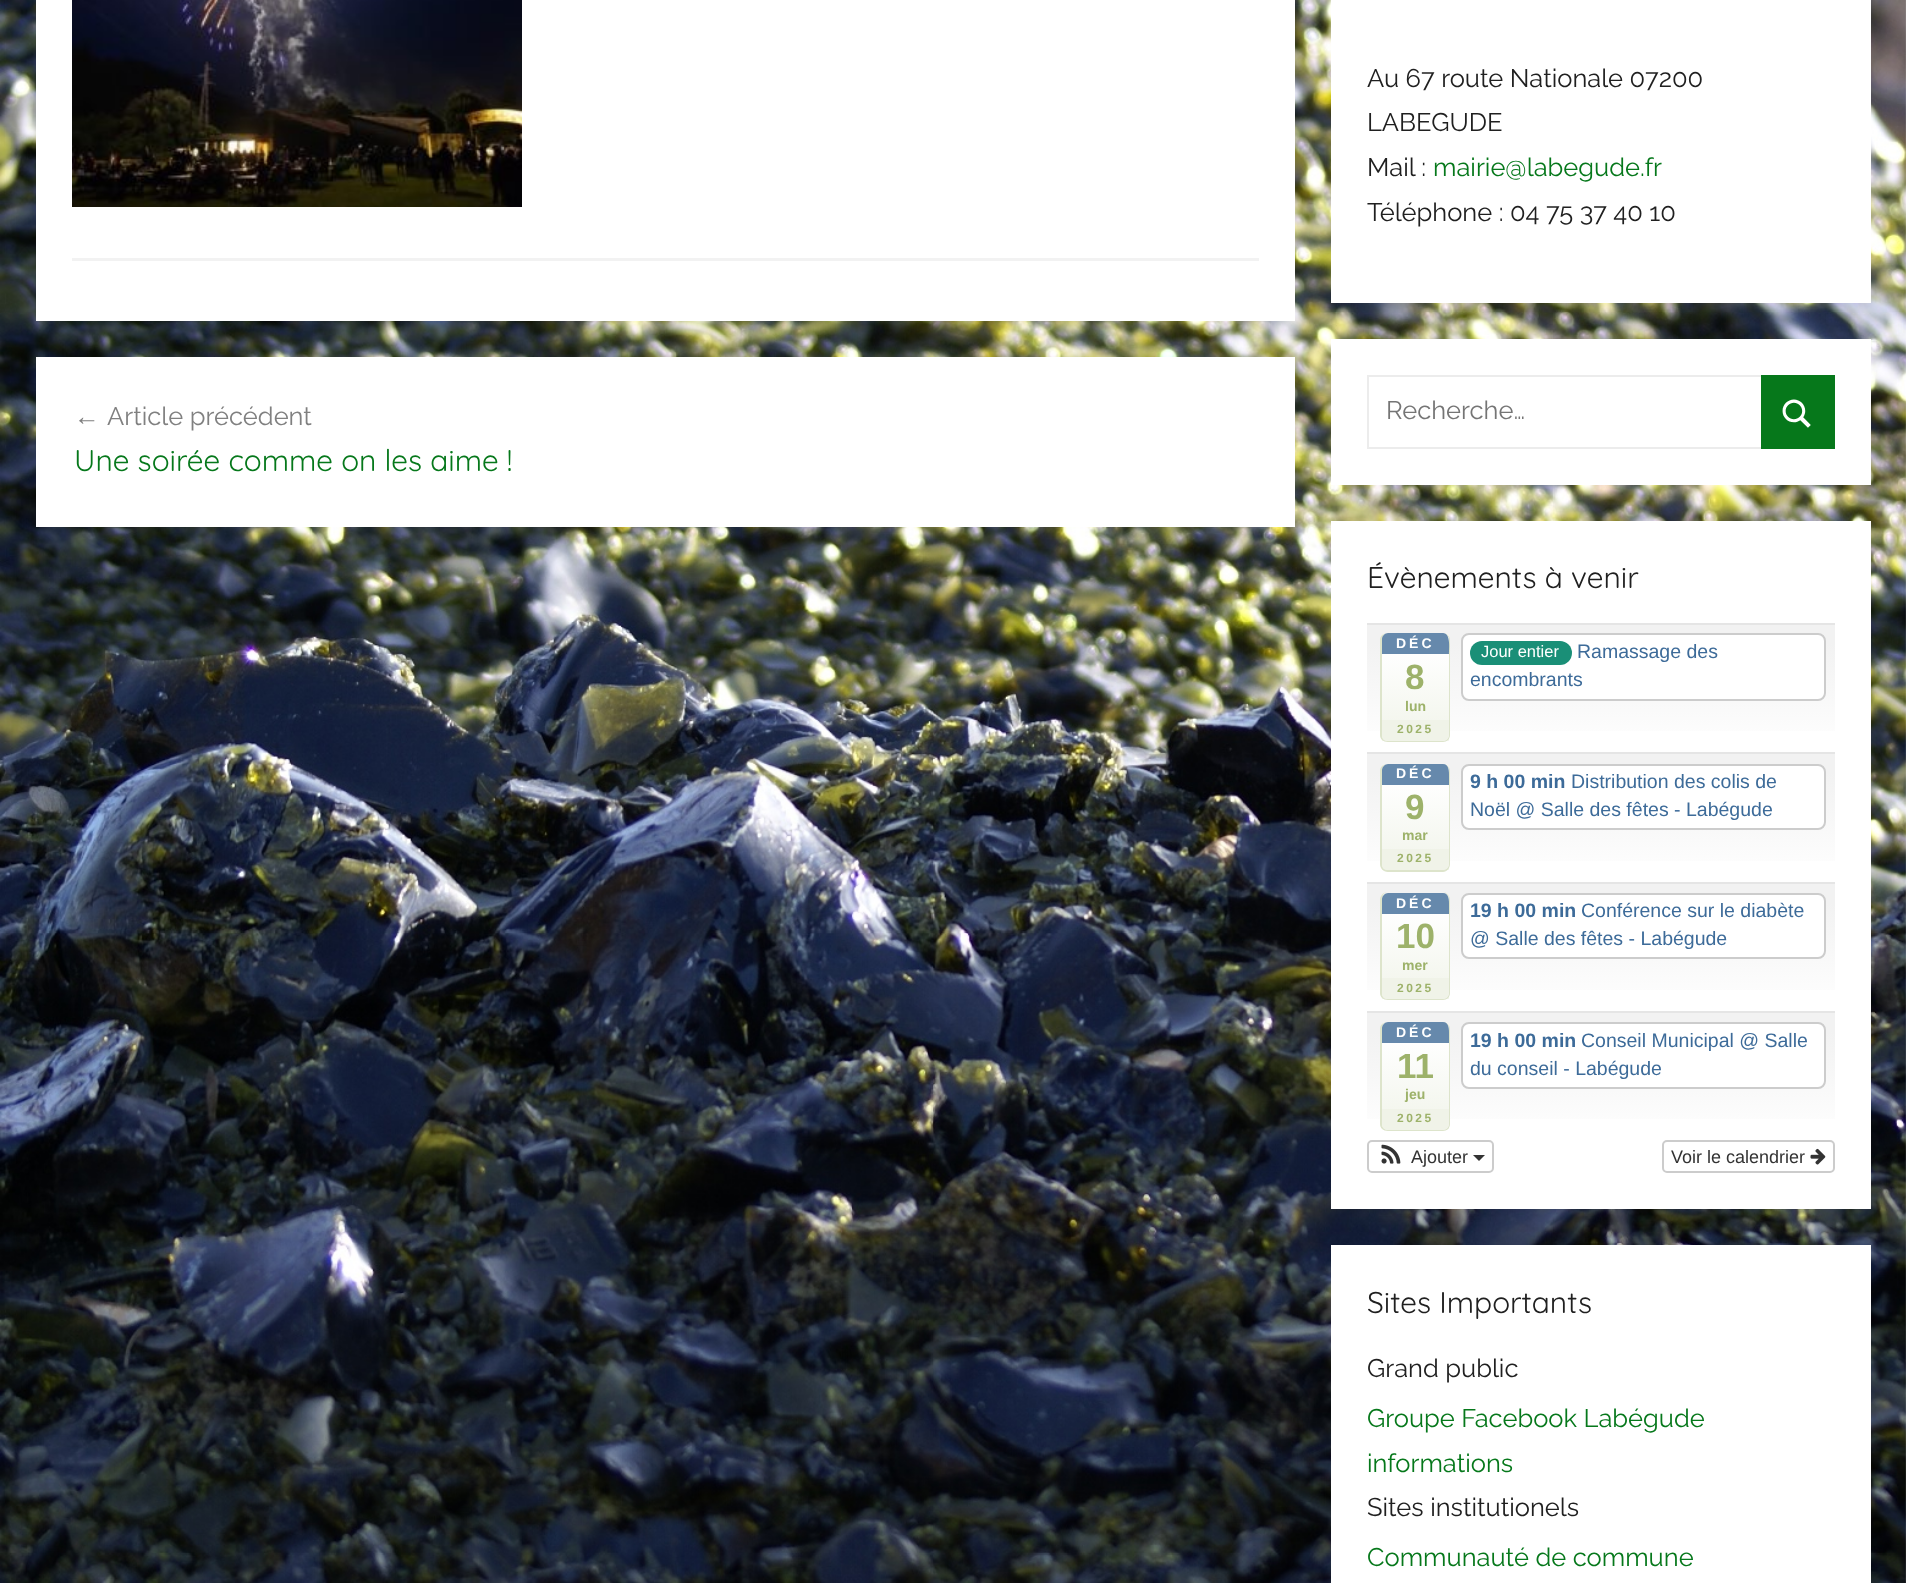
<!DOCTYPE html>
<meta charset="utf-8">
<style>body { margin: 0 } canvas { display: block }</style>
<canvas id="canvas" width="1906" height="1583"></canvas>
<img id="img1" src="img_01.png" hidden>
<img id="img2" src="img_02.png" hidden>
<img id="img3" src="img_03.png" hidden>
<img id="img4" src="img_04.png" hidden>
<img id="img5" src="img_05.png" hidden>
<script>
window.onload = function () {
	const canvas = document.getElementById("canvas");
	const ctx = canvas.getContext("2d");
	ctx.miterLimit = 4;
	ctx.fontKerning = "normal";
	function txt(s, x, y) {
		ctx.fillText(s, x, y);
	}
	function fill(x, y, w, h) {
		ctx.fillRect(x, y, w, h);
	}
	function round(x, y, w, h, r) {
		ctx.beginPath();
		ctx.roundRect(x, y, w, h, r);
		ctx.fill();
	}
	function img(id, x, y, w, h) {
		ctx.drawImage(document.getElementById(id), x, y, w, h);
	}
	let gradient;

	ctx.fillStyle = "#FFFFFF";
	fill(0, 0, 1906, 1583);
	img("img1", 0, 0, 1906, 1583);
	fill(36, 0, 1259, 321);
	img("img2", 72, 0, 450, 207);
	ctx.fillStyle = "#F2F2F2";
	fill(72, 258, 1187, 3);
	ctx.fillStyle = "#FFFFFF";
	fill(36, 357, 1259, 170);
	fill(1331, 0, 540, 303);
	fill(1331, 339, 540, 146);
	ctx.strokeStyle = "#ECECEC";
	ctx.lineWidth = 2;
	ctx.strokeRect(1368, 376, 466, 72);
	ctx.fillStyle = "#06781B";
	fill(1761, 375, 74, 74);
	img("img3", 1782, 399, 29, 29);
	ctx.fillStyle = "#FFFFFF";
	fill(1331, 521, 540, 688);
	gradient = ctx.createLinearGradient(1601, 624, 1601, 752);
	gradient.addColorStop(0, "#F2F2F2");
	gradient.addColorStop(0.15, "#F2F2F2");
	gradient.addColorStop(1, "#FFFFFF");
	ctx.fillStyle = gradient;
	fill(1367, 625, 468, 106);
	ctx.fillStyle = "#E5E5E5";
	fill(1367, 623, 468, 2);
	ctx.save();
	ctx.beginPath();
	ctx.roundRect(1380, 633, 71, 110, 8);
	ctx.clip();
	gradient = ctx.createLinearGradient(1415, 633, 1415, 741);
	gradient.addColorStop(0, "#FFFFFF");
	gradient.addColorStop(0.16, "#FFFFFF");
	gradient.addColorStop(1, "#F1F4EA");
	ctx.fillStyle = gradient;
	fill(1382, 633, 67, 108);
	ctx.restore();
	ctx.fillStyle = "#DDE4CB";
	ctx.beginPath();
	ctx.moveTo(1388, 633);
	ctx.lineTo(1443, 633);
	ctx.bezierCurveTo(1447, 633, 1450, 636, 1450, 640);
	ctx.lineTo(1450, 735);
	ctx.bezierCurveTo(1450, 739, 1447, 742, 1443, 742);
	ctx.lineTo(1388, 742);
	ctx.bezierCurveTo(1383, 742, 1380, 739, 1380, 735);
	ctx.lineTo(1380, 640);
	ctx.bezierCurveTo(1380, 636, 1383, 633, 1388, 633);
	ctx.closePath();
	ctx.moveTo(1388, 633);
	ctx.lineTo(1443, 633);
	ctx.bezierCurveTo(1446, 633, 1449, 636, 1449, 640);
	ctx.lineTo(1449, 735);
	ctx.bezierCurveTo(1449, 738, 1446, 741, 1443, 741);
	ctx.lineTo(1388, 741);
	ctx.bezierCurveTo(1384, 741, 1382, 738, 1382, 735);
	ctx.lineTo(1382, 640);
	ctx.bezierCurveTo(1382, 636, 1384, 633, 1388, 633);
	ctx.closePath();
	ctx.fill("evenodd");
	ctx.fillStyle = "#6689AC";
	ctx.beginPath();
	ctx.moveTo(1388, 633);
	ctx.bezierCurveTo(1385, 633, 1382, 636, 1382, 639);
	ctx.lineTo(1382, 654);
	ctx.lineTo(1449, 654);
	ctx.bezierCurveTo(1449, 649, 1451, 633, 1443, 633);
	ctx.closePath();
	ctx.fill();
	ctx.fillStyle = "#F0F3E8";
	ctx.beginPath();
	ctx.moveTo(1382, 720);
	ctx.lineTo(1382, 737);
	ctx.bezierCurveTo(1383, 740, 1385, 741, 1388, 741);
	ctx.lineTo(1443, 741);
	ctx.bezierCurveTo(1446, 741, 1449, 738, 1449, 735);
	ctx.lineTo(1449, 720);
	ctx.closePath();
	ctx.fill();
	ctx.fillStyle = "#FFFFFF";
	ctx.beginPath();
	ctx.roundRect(1462, 634, 363, 66, 7);
	ctx.fill();
	ctx.strokeStyle = "#CCCCCC";
	ctx.stroke();
	ctx.fillStyle = "#1A8F77";
	round(1470, 641, 102, 24, 12);
	gradient = ctx.createLinearGradient(1601, 753, 1601, 882);
	gradient.addColorStop(0, "#F2F2F2");
	gradient.addColorStop(0.15, "#F2F2F2");
	gradient.addColorStop(1, "#FFFFFF");
	ctx.fillStyle = gradient;
	fill(1367, 754, 468, 107);
	ctx.fillStyle = "#E5E5E5";
	fill(1367, 752, 468, 2);
	ctx.save();
	ctx.beginPath();
	ctx.roundRect(1380, 764, 71, 108, 8);
	ctx.clip();
	gradient = ctx.createLinearGradient(1415, 764, 1415, 870);
	gradient.addColorStop(0, "#FFFFFF");
	gradient.addColorStop(0.16, "#FFFFFF");
	gradient.addColorStop(1, "#F1F4EA");
	ctx.fillStyle = gradient;
	fill(1382, 764, 67, 106);
	ctx.restore();
	ctx.fillStyle = "#DDE4CB";
	ctx.beginPath();
	ctx.moveTo(1388, 764);
	ctx.lineTo(1443, 764);
	ctx.bezierCurveTo(1447, 764, 1450, 767, 1450, 771);
	ctx.lineTo(1450, 864);
	ctx.bezierCurveTo(1450, 868, 1447, 872, 1443, 872);
	ctx.lineTo(1388, 872);
	ctx.bezierCurveTo(1383, 872, 1380, 868, 1380, 864);
	ctx.lineTo(1380, 771);
	ctx.bezierCurveTo(1380, 767, 1383, 764, 1388, 764);
	ctx.closePath();
	ctx.moveTo(1388, 764);
	ctx.lineTo(1443, 764);
	ctx.bezierCurveTo(1446, 764, 1449, 767, 1449, 771);
	ctx.lineTo(1449, 864);
	ctx.bezierCurveTo(1449, 867, 1446, 870, 1443, 870);
	ctx.lineTo(1388, 870);
	ctx.bezierCurveTo(1384, 870, 1382, 867, 1382, 864);
	ctx.lineTo(1382, 771);
	ctx.bezierCurveTo(1382, 767, 1384, 764, 1388, 764);
	ctx.closePath();
	ctx.fill("evenodd");
	ctx.fillStyle = "#6689AC";
	ctx.beginPath();
	ctx.moveTo(1388, 764);
	ctx.bezierCurveTo(1385, 764, 1382, 767, 1382, 770);
	ctx.lineTo(1382, 785);
	ctx.lineTo(1449, 785);
	ctx.lineTo(1449, 776);
	ctx.bezierCurveTo(1449, 771, 1449, 764, 1443, 764);
	ctx.closePath();
	ctx.fill();
	ctx.fillStyle = "#F0F3E8";
	ctx.beginPath();
	ctx.moveTo(1382, 849);
	ctx.lineTo(1382, 866);
	ctx.bezierCurveTo(1383, 869, 1385, 870, 1388, 870);
	ctx.lineTo(1443, 870);
	ctx.bezierCurveTo(1446, 870, 1449, 867, 1449, 864);
	ctx.lineTo(1449, 849);
	ctx.closePath();
	ctx.fill();
	ctx.fillStyle = "#FFFFFF";
	ctx.beginPath();
	ctx.roundRect(1462, 765, 363, 64, 7);
	ctx.fill();
	ctx.stroke();
	gradient = ctx.createLinearGradient(1601, 884, 1601, 1011);
	gradient.addColorStop(0, "#F2F2F2");
	gradient.addColorStop(0.15, "#F2F2F2");
	gradient.addColorStop(1, "#FFFFFF");
	ctx.fillStyle = gradient;
	fill(1367, 884, 468, 106);
	ctx.fillStyle = "#E5E5E5";
	fill(1367, 882, 468, 2);
	ctx.save();
	ctx.beginPath();
	ctx.roundRect(1380, 893, 71, 108, 8);
	ctx.clip();
	gradient = ctx.createLinearGradient(1415, 893, 1415, 999);
	gradient.addColorStop(0, "#FFFFFF");
	gradient.addColorStop(0.16, "#FFFFFF");
	gradient.addColorStop(1, "#F1F4EA");
	ctx.fillStyle = gradient;
	fill(1382, 893, 67, 106);
	ctx.restore();
	ctx.fillStyle = "#DDE4CB";
	ctx.beginPath();
	ctx.moveTo(1388, 892);
	ctx.lineTo(1443, 892);
	ctx.bezierCurveTo(1447, 892, 1450, 896, 1450, 900);
	ctx.lineTo(1450, 993);
	ctx.bezierCurveTo(1450, 997, 1447, 1000, 1443, 1000);
	ctx.lineTo(1388, 1000);
	ctx.bezierCurveTo(1383, 1000, 1380, 997, 1380, 993);
	ctx.lineTo(1380, 900);
	ctx.bezierCurveTo(1380, 896, 1383, 892, 1388, 892);
	ctx.closePath();
	ctx.moveTo(1388, 892);
	ctx.lineTo(1443, 892);
	ctx.bezierCurveTo(1446, 892, 1449, 896, 1449, 900);
	ctx.lineTo(1449, 993);
	ctx.bezierCurveTo(1449, 996, 1446, 999, 1443, 999);
	ctx.lineTo(1388, 999);
	ctx.bezierCurveTo(1384, 999, 1382, 996, 1382, 993);
	ctx.lineTo(1382, 900);
	ctx.bezierCurveTo(1382, 896, 1384, 892, 1388, 892);
	ctx.closePath();
	ctx.fill("evenodd");
	ctx.fillStyle = "#6689AC";
	ctx.beginPath();
	ctx.moveTo(1388, 893);
	ctx.bezierCurveTo(1385, 893, 1382, 896, 1382, 899);
	ctx.lineTo(1382, 914);
	ctx.lineTo(1449, 914);
	ctx.lineTo(1449, 905);
	ctx.bezierCurveTo(1449, 900, 1449, 893, 1443, 893);
	ctx.closePath();
	ctx.fill();
	ctx.fillStyle = "#F0F3E8";
	ctx.beginPath();
	ctx.moveTo(1382, 978);
	ctx.lineTo(1382, 995);
	ctx.bezierCurveTo(1383, 998, 1385, 999, 1388, 999);
	ctx.lineTo(1443, 999);
	ctx.bezierCurveTo(1446, 999, 1449, 996, 1449, 993);
	ctx.lineTo(1449, 978);
	ctx.closePath();
	ctx.fill();
	ctx.fillStyle = "#FFFFFF";
	ctx.beginPath();
	ctx.roundRect(1462, 894, 363, 64, 7);
	ctx.fill();
	ctx.stroke();
	gradient = ctx.createLinearGradient(1601, 1013, 1601, 1140);
	gradient.addColorStop(0, "#F2F2F2");
	gradient.addColorStop(0.15, "#F2F2F2");
	gradient.addColorStop(1, "#FFFFFF");
	ctx.fillStyle = gradient;
	fill(1367, 1013, 468, 106);
	ctx.fillStyle = "#E5E5E5";
	fill(1367, 1011, 468, 2);
	ctx.save();
	ctx.beginPath();
	ctx.roundRect(1380, 1022, 71, 109, 8);
	ctx.clip();
	gradient = ctx.createLinearGradient(1415, 1022, 1415, 1130);
	gradient.addColorStop(0, "#FFFFFF");
	gradient.addColorStop(0.16, "#FFFFFF");
	gradient.addColorStop(1, "#F1F4EA");
	ctx.fillStyle = gradient;
	fill(1382, 1022, 67, 108);
	ctx.restore();
	ctx.fillStyle = "#DDE4CB";
	ctx.beginPath();
	ctx.moveTo(1388, 1022);
	ctx.lineTo(1443, 1022);
	ctx.bezierCurveTo(1447, 1022, 1450, 1025, 1450, 1029);
	ctx.lineTo(1450, 1124);
	ctx.bezierCurveTo(1450, 1128, 1447, 1131, 1443, 1131);
	ctx.lineTo(1388, 1131);
	ctx.bezierCurveTo(1383, 1131, 1380, 1128, 1380, 1124);
	ctx.lineTo(1380, 1029);
	ctx.bezierCurveTo(1380, 1025, 1383, 1022, 1388, 1022);
	ctx.closePath();
	ctx.moveTo(1388, 1022);
	ctx.lineTo(1443, 1022);
	ctx.bezierCurveTo(1446, 1022, 1449, 1025, 1449, 1029);
	ctx.lineTo(1449, 1124);
	ctx.bezierCurveTo(1449, 1127, 1446, 1130, 1443, 1130);
	ctx.lineTo(1388, 1130);
	ctx.bezierCurveTo(1384, 1130, 1382, 1127, 1382, 1124);
	ctx.lineTo(1382, 1029);
	ctx.bezierCurveTo(1382, 1025, 1384, 1022, 1388, 1022);
	ctx.closePath();
	ctx.fill("evenodd");
	ctx.fillStyle = "#6689AC";
	ctx.beginPath();
	ctx.moveTo(1388, 1022);
	ctx.bezierCurveTo(1385, 1022, 1382, 1025, 1382, 1028);
	ctx.lineTo(1382, 1043);
	ctx.lineTo(1449, 1043);
	ctx.lineTo(1449, 1034);
	ctx.bezierCurveTo(1449, 1029, 1449, 1022, 1443, 1022);
	ctx.closePath();
	ctx.fill();
	ctx.fillStyle = "#F0F3E8";
	ctx.beginPath();
	ctx.moveTo(1382, 1109);
	ctx.lineTo(1382, 1126);
	ctx.bezierCurveTo(1383, 1128, 1385, 1130, 1388, 1130);
	ctx.lineTo(1443, 1130);
	ctx.bezierCurveTo(1446, 1130, 1449, 1127, 1449, 1124);
	ctx.lineTo(1449, 1109);
	ctx.closePath();
	ctx.fill();
	ctx.fillStyle = "#FFFFFF";
	ctx.beginPath();
	ctx.roundRect(1462, 1023, 363, 65, 7);
	ctx.fill();
	ctx.stroke();
	ctx.beginPath();
	ctx.roundRect(1368, 1141, 125, 31, 4);
	ctx.stroke();
	img("img4", 1381, 1144, 20, 20);
	ctx.fillStyle = "#333333";
	ctx.beginPath();
	ctx.moveTo(1473, 1155);
	ctx.lineTo(1485, 1155);
	ctx.lineTo(1479, 1161);
	ctx.closePath();
	ctx.fill();
	ctx.beginPath();
	ctx.roundRect(1663, 1141, 171, 31, 4);
	ctx.stroke();
	img("img5", 1810, 1148, 16, 17);
	ctx.fillStyle = "#FFFFFF";
	fill(1331, 1245, 540, 338);
	ctx.font = "25.5px Liberation Sans";
	ctx.fillStyle = "#808080";
	txt("←", 74, 425);
	ctx.font = "100 25.5px Raleway";
	txt("Article précédent", 107, 425);
	ctx.font = "300 30px Quicksand";
	ctx.fillStyle = "#06781B";
	txt("Une soirée comme on les aime !", 74, 471);
	ctx.font = "100 25.5px Raleway";
	ctx.fillStyle = "#202020";
	txt("Au 67 route Nationale 07200", 1367, 87);
	txt("LABEGUDE", 1367, 131);
	txt("Mail :", 1367, 176);
	ctx.fillStyle = "#06781B";
	txt("mairie@labegude.fr", 1433, 176);
	ctx.fillStyle = "#202020";
	txt("Téléphone : 04 75 37 40 10", 1367, 221);
	ctx.fillStyle = "#757575";
	txt("Recherche…", 1386, 419);
	ctx.font = "300 30px Quicksand";
	ctx.fillStyle = "#202020";
	txt("Évènements à venir", 1367, 588);
	ctx.letterSpacing = "3px";
	ctx.font = "bold 14px Liberation Sans";
	ctx.fillStyle = "#FFFFFF";
	txt("DÉC", 1396, 648);
	ctx.letterSpacing = "0px";
	ctx.font = "bold 35px Liberation Sans";
	ctx.fillStyle = "#9DB26A";
	txt("8", 1405, 689);
	ctx.font = "bold 14px Liberation Sans";
	txt("lun", 1405, 711);
	ctx.letterSpacing = "2.5px";
	ctx.font = "bold 12px Liberation Sans";
	txt("2025", 1397, 733);
	ctx.letterSpacing = "0px";
	ctx.font = "16.5px Liberation Sans";
	ctx.fillStyle = "#FFFFFF";
	txt("Jour entier", 1481, 657);
	ctx.font = "19.5px Liberation Sans";
	ctx.fillStyle = "#3D6B99";
	txt("Ramassage des", 1577, 658);
	txt("encombrants", 1470, 686);
	ctx.letterSpacing = "3px";
	ctx.font = "bold 14px Liberation Sans";
	ctx.fillStyle = "#FFFFFF";
	txt("DÉC", 1396, 778);
	ctx.letterSpacing = "0px";
	ctx.font = "bold 35px Liberation Sans";
	ctx.fillStyle = "#9DB26A";
	txt("9", 1405, 819);
	ctx.font = "bold 14px Liberation Sans";
	txt("mar", 1402, 840);
	ctx.letterSpacing = "2.5px";
	ctx.font = "bold 12px Liberation Sans";
	txt("2025", 1397, 862);
	ctx.letterSpacing = "0px";
	ctx.font = "bold 19.5px Liberation Sans";
	ctx.fillStyle = "#3D6B99";
	txt("9 h 00 min", 1470, 788);
	ctx.font = "19.5px Liberation Sans";
	txt("Distribution des colis de", 1571, 788);
	txt("Noël @ Salle des fêtes - Labégude", 1470, 816);
	ctx.letterSpacing = "3px";
	ctx.font = "bold 14px Liberation Sans";
	ctx.fillStyle = "#FFFFFF";
	txt("DÉC", 1396, 908);
	ctx.letterSpacing = "0px";
	ctx.font = "bold 35px Liberation Sans";
	ctx.fillStyle = "#9DB26A";
	txt("10", 1396, 948);
	ctx.font = "bold 14px Liberation Sans";
	txt("mer", 1402, 970);
	ctx.letterSpacing = "2.5px";
	ctx.font = "bold 12px Liberation Sans";
	txt("2025", 1397, 992);
	ctx.letterSpacing = "0px";
	ctx.font = "bold 19.5px Liberation Sans";
	ctx.fillStyle = "#3D6B99";
	txt("19 h 00 min", 1470, 917);
	ctx.font = "19.5px Liberation Sans";
	txt("Conférence sur le diabète", 1581, 917);
	txt("@ Salle des fêtes - Labégude", 1470, 945);
	ctx.letterSpacing = "3px";
	ctx.font = "bold 14px Liberation Sans";
	ctx.fillStyle = "#FFFFFF";
	txt("DÉC", 1396, 1037);
	ctx.letterSpacing = "0px";
	ctx.font = "bold 35px Liberation Sans";
	ctx.fillStyle = "#9DB26A";
	txt("11", 1397, 1078);
	ctx.font = "bold 14px Liberation Sans";
	txt("jeu", 1405, 1099);
	ctx.letterSpacing = "2.5px";
	ctx.font = "bold 12px Liberation Sans";
	txt("2025", 1397, 1122);
	ctx.letterSpacing = "0px";
	ctx.font = "bold 19.5px Liberation Sans";
	ctx.fillStyle = "#3D6B99";
	txt("19 h 00 min", 1470, 1047);
	ctx.font = "19.5px Liberation Sans";
	txt("Conseil Municipal @ Salle", 1581, 1047);
	txt("du conseil - Labégude", 1470, 1075);
	ctx.font = "18px Liberation Sans";
	ctx.fillStyle = "#333333";
	txt("Ajouter", 1411, 1163);
	txt("Voir le calendrier", 1671, 1163);
	ctx.font = "300 30px Quicksand";
	ctx.fillStyle = "#202020";
	txt("Sites Importants", 1367, 1313);
	ctx.font = "100 25.5px Raleway";
	txt("Grand public", 1367, 1377);
	ctx.fillStyle = "#06781B";
	txt("Groupe Facebook Labégude", 1367, 1427);
	txt("informations", 1367, 1472);
	ctx.fillStyle = "#202020";
	txt("Sites institutionels", 1367, 1516);
	ctx.fillStyle = "#06781B";
	txt("Communauté de commune", 1367, 1566);
};
</script>
